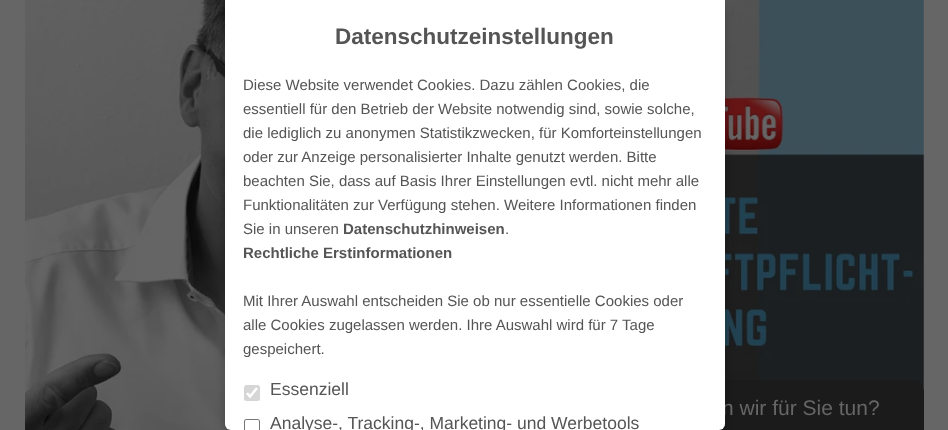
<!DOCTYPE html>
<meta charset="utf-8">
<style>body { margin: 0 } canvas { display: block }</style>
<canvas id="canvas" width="948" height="430"></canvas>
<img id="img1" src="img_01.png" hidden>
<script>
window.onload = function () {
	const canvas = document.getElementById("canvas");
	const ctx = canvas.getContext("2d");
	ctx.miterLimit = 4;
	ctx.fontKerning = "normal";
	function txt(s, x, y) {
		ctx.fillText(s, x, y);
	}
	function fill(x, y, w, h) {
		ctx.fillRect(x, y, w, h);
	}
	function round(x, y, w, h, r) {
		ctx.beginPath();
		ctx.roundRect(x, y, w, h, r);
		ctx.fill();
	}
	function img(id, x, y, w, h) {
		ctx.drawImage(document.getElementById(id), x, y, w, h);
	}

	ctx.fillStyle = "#666666";
	fill(0, 0, 948, 430);
	img("img1", 25, 0, 899, 430);
	ctx.fillStyle = "#1B1B1B";
	ctx.beginPath();
	ctx.roundRect(549, 380, 375, 50, [10, 10, 0, 0]);
	ctx.fill();
	ctx.fillStyle = "rgba(0, 0, 0, 0.2)";
	ctx.filter = "blur(5px)";
	ctx.beginPath();
	ctx.roundRect(225, 5, 500, 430, 6);
	ctx.fill();
	ctx.filter = "none";
	ctx.font = "21px Liberation Sans";
	ctx.fillStyle = "#666666";
	txt("n wir für Sie tun?", 722, 415);
	ctx.fillStyle = "#FFFFFF";
	ctx.beginPath();
	ctx.roundRect(225, 0, 500, 430, [0, 0, 6, 6]);
	ctx.fill();
	ctx.font = "17.5px Liberation Sans";
	ctx.fillStyle = "#555555";
	txt("Analyse-, Tracking-, Marketing- und Werbetools", 270, 429);
	ctx.fillStyle = "#767676";
	ctx.beginPath();
	ctx.moveTo(246.5, 419);
	ctx.bezierCurveTo(245, 419, 244, 420, 244, 421.5);
	ctx.lineTo(244, 430);
	ctx.lineTo(245, 430);
	ctx.lineTo(245, 421.5);
	ctx.bezierCurveTo(245, 420.5, 245.5, 420, 246.5, 420);
	ctx.lineTo(257.5, 420);
	ctx.bezierCurveTo(258.5, 420, 259, 420.5, 259, 421.5);
	ctx.lineTo(259, 430);
	ctx.lineTo(260, 430);
	ctx.lineTo(260, 421.5);
	ctx.bezierCurveTo(260, 420, 259, 419, 257.5, 419);
	ctx.closePath();
	ctx.fill();
	ctx.fillStyle = "#555555";
	txt("Essenziell", 270, 395);
	ctx.fillStyle = "#D6D6D6";
	round(244, 385, 16, 16, 2.5);
	ctx.beginPath();
	ctx.moveTo(247, 393);
	ctx.lineTo(250, 396.5);
	ctx.lineTo(257, 388);
	ctx.strokeStyle = "#FFFFFF";
	ctx.lineWidth = 2.6;
	ctx.stroke();
	ctx.font = "15px Liberation Sans";
	ctx.fillStyle = "#555555";
	txt("gespeichert.", 243, 354);
	txt("alle Cookies zugelassen werden. Ihre Auswahl wird für 7 Tage", 243, 330);
	txt("Mit Ihrer Auswahl entscheiden Sie ob nur essentielle Cookies oder", 243, 306);
	ctx.font = "bold 15px Liberation Sans";
	txt("Rechtliche Erstinformationen", 243, 258);
	ctx.font = "15px Liberation Sans";
	txt(".", 505, 234);
	ctx.font = "bold 15px Liberation Sans";
	txt("Datenschutzhinweisen", 343, 234);
	ctx.font = "15px Liberation Sans";
	txt("Sie in unseren", 243, 234);
	txt("Funktionalitäten zur Verfügung stehen. Weitere Informationen finden", 243, 210);
	txt("beachten Sie, dass auf Basis Ihrer Einstellungen evtl. nicht mehr alle", 243, 186);
	txt("oder zur Anzeige personalisierter Inhalte genutzt werden. Bitte", 243, 162);
	txt("die lediglich zu anonymen Statistikzwecken, für Komforteinstellungen", 243, 138);
	txt("essentiell für den Betrieb der Website notwendig sind, sowie solche,", 243, 114);
	txt("Diese Website verwendet Cookies. Dazu zählen Cookies, die", 243, 90);
	ctx.font = "bold 22.5px Liberation Sans";
	txt("Datenschutzeinstellungen", 335, 44);
};
</script>
